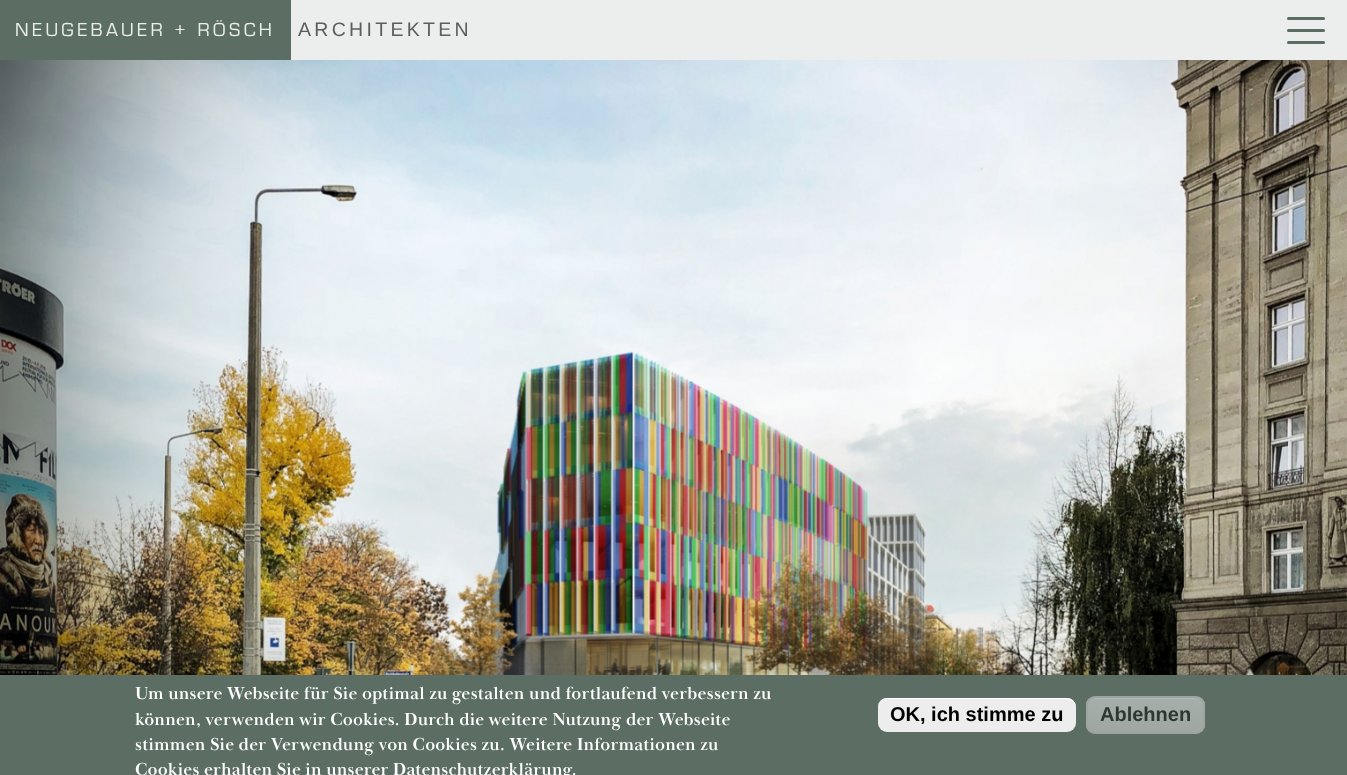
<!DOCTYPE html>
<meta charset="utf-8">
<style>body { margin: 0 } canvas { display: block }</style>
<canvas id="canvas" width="1347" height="775"></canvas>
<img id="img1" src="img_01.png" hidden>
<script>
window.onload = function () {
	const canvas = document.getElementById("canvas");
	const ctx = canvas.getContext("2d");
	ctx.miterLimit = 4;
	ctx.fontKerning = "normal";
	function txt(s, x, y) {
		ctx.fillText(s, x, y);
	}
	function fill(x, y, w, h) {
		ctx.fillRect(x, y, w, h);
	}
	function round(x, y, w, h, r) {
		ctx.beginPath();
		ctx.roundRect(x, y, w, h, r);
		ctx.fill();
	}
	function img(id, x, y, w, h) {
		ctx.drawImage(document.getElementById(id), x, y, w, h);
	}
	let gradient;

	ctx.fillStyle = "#FFFFFF";
	fill(0, 0, 1347, 775);
	ctx.fillStyle = "#EBEEEC";
	fill(291, 0, 1056, 60);
	ctx.fillStyle = "#5C6E64";
	fill(0, 0, 291, 60);
	round(1287, 41, 38, 3, 1.5);
	round(1287, 17, 38, 3, 1.5);
	round(1287, 29, 38, 3, 1.5);
	img("img1", 0, 60, 1347, 615);
	fill(0, 675, 1347, 100);
	ctx.fillStyle = "#EDEDED";
	round(878, 698, 198, 34, 9);
	ctx.fillStyle = "#FFFFFF";
	ctx.beginPath();
	ctx.moveTo(886, 699);
	ctx.lineTo(1066, 699);
	ctx.bezierCurveTo(1071, 699, 1076, 703, 1076, 708);
	ctx.lineTo(1076, 707);
	ctx.bezierCurveTo(1076, 702, 1072, 698, 1067, 698);
	ctx.lineTo(887, 698);
	ctx.bezierCurveTo(882, 698, 878, 702, 878, 707);
	ctx.lineTo(878, 708);
	ctx.bezierCurveTo(878, 703, 882, 699, 886, 699);
	ctx.closePath();
	ctx.fill();
	ctx.save();
	ctx.beginPath();
	ctx.roundRect(1086, 696, 119, 38, 9);
	ctx.clip();
	gradient = ctx.createLinearGradient(1145, 698, 1145, 732);
	gradient.addColorStop(0.05, "#A5AEA9");
	gradient.addColorStop(1, "#9EA7A2");
	ctx.fillStyle = gradient;
	fill(1086, 698, 119, 34);
	ctx.restore();
	ctx.fillStyle = "#AEB7B2";
	ctx.beginPath();
	ctx.moveTo(1095, 699);
	ctx.lineTo(1196, 699);
	ctx.bezierCurveTo(1200, 699, 1203, 702, 1203, 706);
	ctx.bezierCurveTo(1203, 702, 1199, 698, 1195, 698);
	ctx.lineTo(1096, 698);
	ctx.bezierCurveTo(1092, 698, 1088, 702, 1088, 706);
	ctx.bezierCurveTo(1088, 702, 1091, 699, 1095, 699);
	ctx.closePath();
	ctx.fill();
	ctx.beginPath();
	ctx.roundRect(1087, 697, 117, 36, 8);
	ctx.strokeStyle = "#9CA5A0";
	ctx.lineWidth = 2;
	ctx.stroke();
	ctx.letterSpacing = "3.3px";
	ctx.font = "19.5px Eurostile";
	ctx.fillStyle = "#EBEEEC";
	txt("NEUGEBAUER + RÖSCH", 15, 36);
	ctx.font = "19.5px Liberation Sans";
	ctx.fillStyle = "#5B5D5F";
	txt("ARCHITEKTEN", 298, 36);
	ctx.letterSpacing = "0.18px";
	ctx.font = "bold 18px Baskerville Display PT";
	ctx.fillStyle = "#FFFFFF";
	txt("Um unsere Webseite für Sie optimal zu gestalten und fortlaufend verbessern zu", 135, 699);
	txt("können, verwenden wir Cookies. Durch die weitere Nutzung der Webseite", 135, 725);
	txt("stimmen Sie der Verwendung von Cookies zu. Weitere Informationen zu", 135, 750);
	txt("Cookies erhalten Sie in unserer Datenschutzerklärung.", 135, 775);
	ctx.letterSpacing = "0px";
	ctx.font = "bold 20px Liberation Sans";
	ctx.fillStyle = "#000000";
	txt("OK, ich stimme zu", 890, 721);
	ctx.fillStyle = "#2E3732";
	txt("Ablehnen", 1100, 721);
};
</script>
